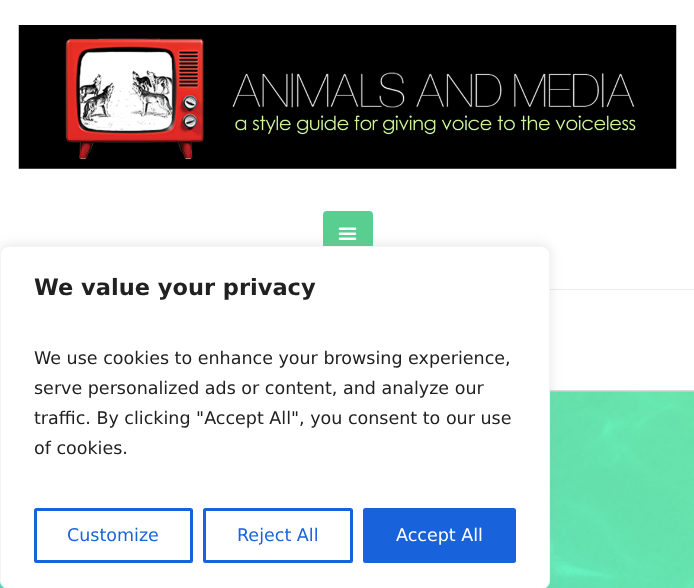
<!DOCTYPE html>
<meta charset="utf-8">
<style>body { margin: 0 } canvas { display: block }</style>
<canvas id="canvas" width="694" height="588"></canvas>
<img id="img1" src="img_01.png" hidden>
<img id="img2" src="img_02.png" hidden>
<img id="img3" src="img_03.png" hidden>
<script>
window.onload = function () {
	const canvas = document.getElementById("canvas");
	const ctx = canvas.getContext("2d");
	ctx.miterLimit = 4;
	ctx.fontKerning = "normal";
	function txt(s, x, y) {
		ctx.fillText(s, x, y);
	}
	function fill(x, y, w, h) {
		ctx.fillRect(x, y, w, h);
	}
	function round(x, y, w, h, r) {
		ctx.beginPath();
		ctx.roundRect(x, y, w, h, r);
		ctx.fill();
	}
	function img(id, x, y, w, h) {
		ctx.drawImage(document.getElementById(id), x, y, w, h);
	}

	ctx.fillStyle = "#FFFFFF";
	fill(0, 0, 694, 588);
	ctx.fillStyle = "#EBEBEB";
	fill(550, 289, 144, 1);
	img("img1", 18, 25, 659, 144);
	ctx.fillStyle = "#58CF90";
	round(323, 211, 50, 45, 4);
	img("img2", 338, 227, 19, 13);
	ctx.fillStyle = "#D9D7DD";
	fill(550, 390, 144, 1);
	img("img3", 0, 391, 694, 197);
	ctx.fillStyle = "rgba(172, 171, 171, 0.3)";
	ctx.filter = "blur(6px)";
	ctx.beginPath();
	ctx.roundRect(0, 245, 550, 343, 8);
	ctx.fill();
	ctx.filter = "none";
	ctx.fillStyle = "#FFFFFF";
	ctx.beginPath();
	ctx.roundRect(0.5, 246.5, 549, 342, 7.5);
	ctx.fill();
	ctx.strokeStyle = "#F4F4F4";
	ctx.stroke();
	ctx.beginPath();
	ctx.roundRect(35.5, 509.5, 156, 52, 1);
	ctx.strokeStyle = "#1863DC";
	ctx.lineWidth = 3;
	ctx.stroke();
	ctx.beginPath();
	ctx.roundRect(204.5, 509.5, 147, 52, 1);
	ctx.stroke();
	ctx.fillStyle = "#1863DC";
	ctx.beginPath();
	ctx.roundRect(364.5, 509.5, 150, 52, 1);
	ctx.fill();
	ctx.stroke();
	ctx.font = "bold 22.5px DejaVu Sans";
	ctx.fillStyle = "#212121";
	txt("We value your privacy", 34, 295);
	ctx.font = "17.5px DejaVu Sans";
	txt("We use cookies to enhance your browsing experience,", 34, 364);
	txt("serve personalized ads or content, and analyze our", 34, 394);
	txt("traffic. By clicking \"Accept All\", you consent to our use", 34, 424);
	txt("of cookies.", 34, 454);
	ctx.fillStyle = "#1863DC";
	txt("Customize", 67, 541);
	txt("Reject All", 237, 541);
	ctx.fillStyle = "#FFFFFF";
	txt("Accept All", 396, 541);
};
</script>
